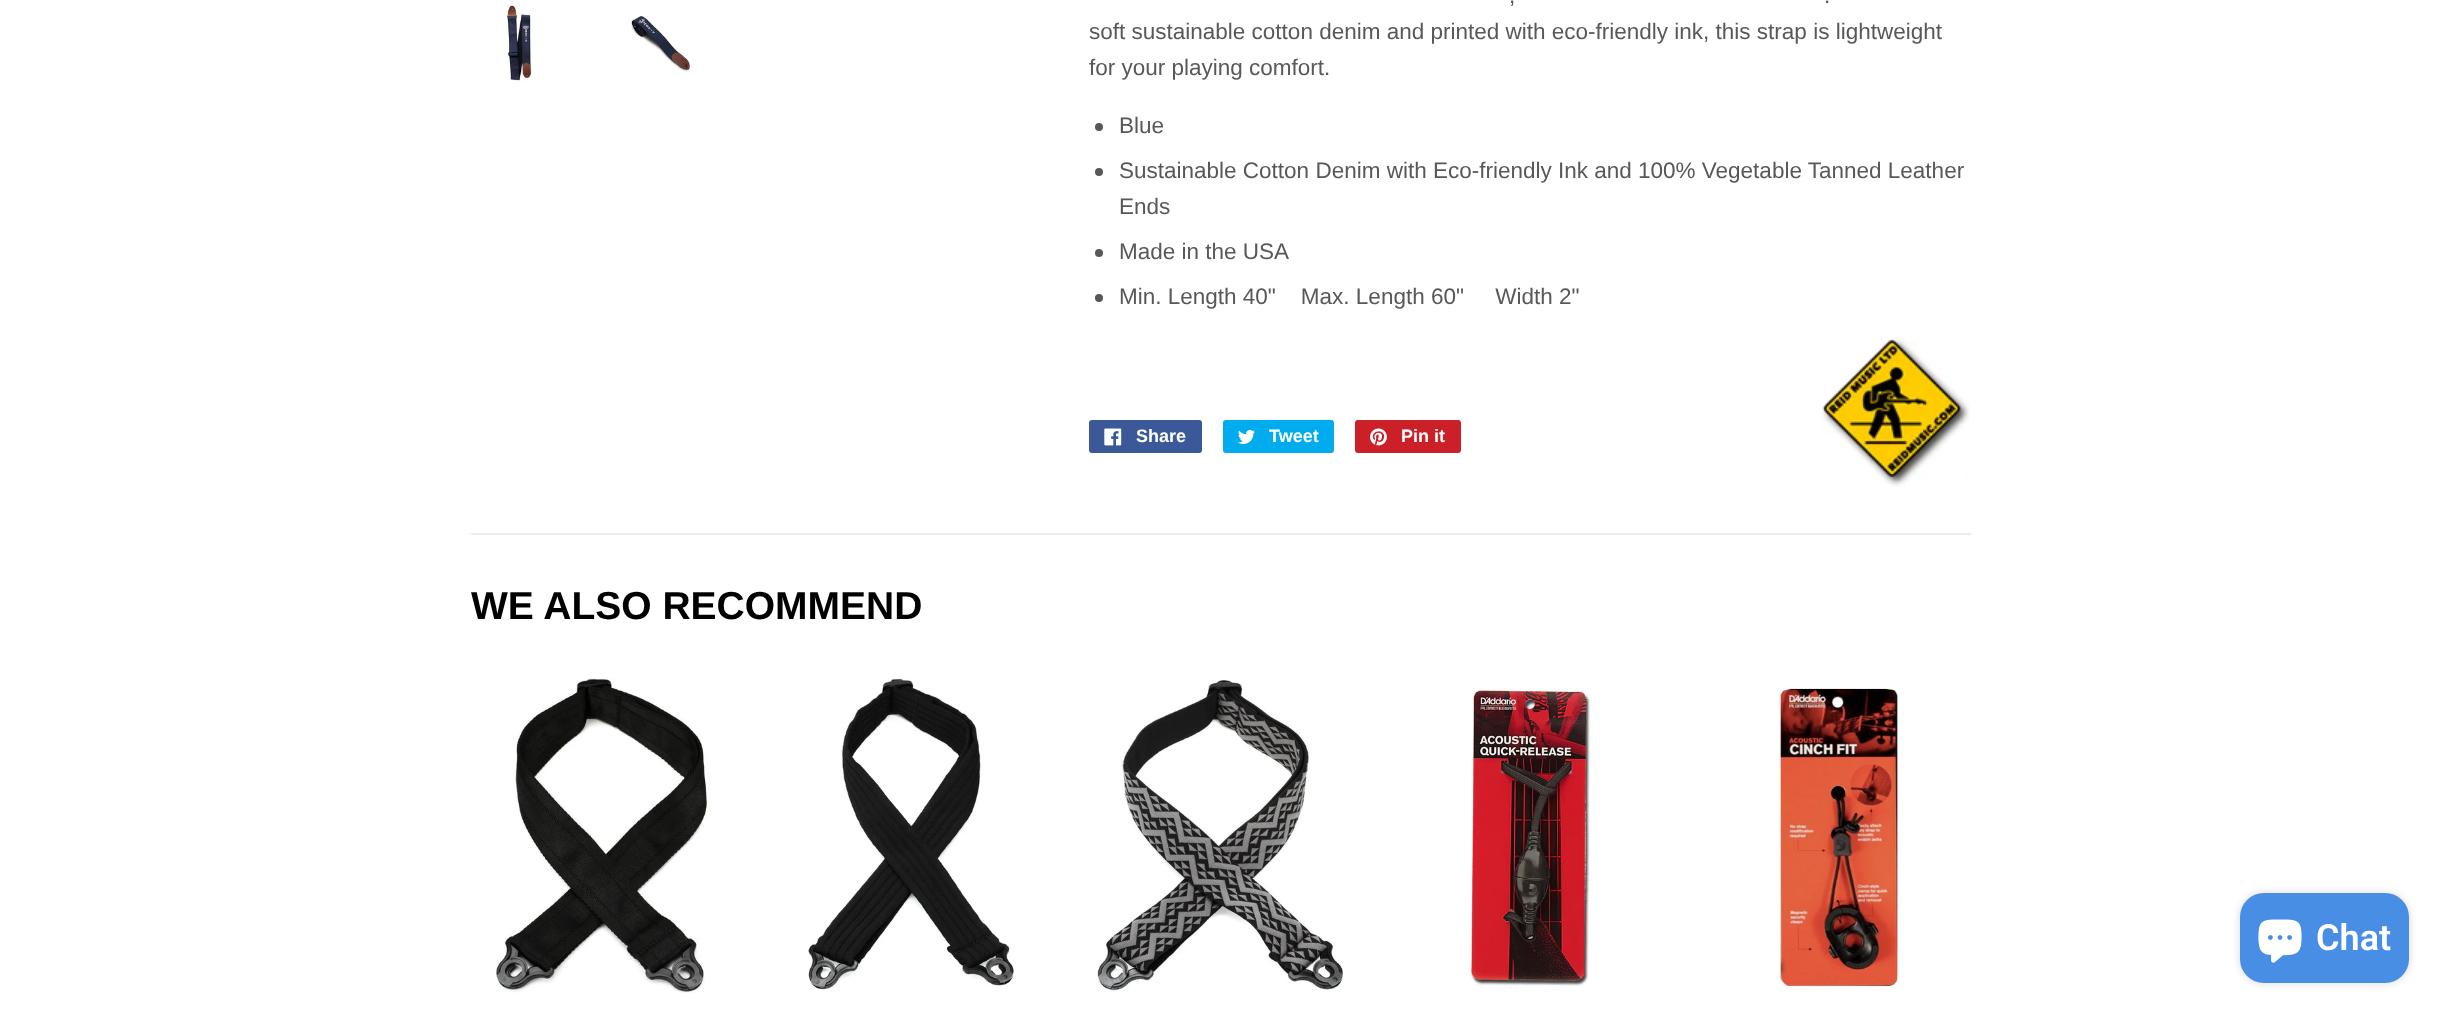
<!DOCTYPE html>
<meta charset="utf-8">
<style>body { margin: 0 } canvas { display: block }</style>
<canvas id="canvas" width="2441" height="1013"></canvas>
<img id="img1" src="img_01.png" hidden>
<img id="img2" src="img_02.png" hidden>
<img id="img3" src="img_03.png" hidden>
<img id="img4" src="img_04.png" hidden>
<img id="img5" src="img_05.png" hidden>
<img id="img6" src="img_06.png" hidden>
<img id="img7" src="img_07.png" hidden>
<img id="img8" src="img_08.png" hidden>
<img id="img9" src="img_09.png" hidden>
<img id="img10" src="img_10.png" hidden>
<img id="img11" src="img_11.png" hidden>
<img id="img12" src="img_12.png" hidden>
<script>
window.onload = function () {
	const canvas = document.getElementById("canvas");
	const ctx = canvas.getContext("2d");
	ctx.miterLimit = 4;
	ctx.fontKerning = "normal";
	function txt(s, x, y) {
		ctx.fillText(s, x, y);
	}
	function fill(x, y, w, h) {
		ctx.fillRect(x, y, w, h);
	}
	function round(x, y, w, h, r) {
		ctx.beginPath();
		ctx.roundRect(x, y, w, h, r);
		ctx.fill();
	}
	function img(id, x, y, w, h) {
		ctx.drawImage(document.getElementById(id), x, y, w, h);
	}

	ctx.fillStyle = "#FFFFFF";
	fill(0, 0, 2441, 1013);
	img("img1", 506, 4, 27, 78);
	img("img2", 631, 16, 60, 56);
	ctx.fillStyle = "#585858";
	ctx.beginPath();
	ctx.arc(1099, 127, 4, 0, Math.PI * 2);
	ctx.fill();
	ctx.beginPath();
	ctx.arc(1099, 172, 4, 0, Math.PI * 2);
	ctx.fill();
	ctx.beginPath();
	ctx.arc(1099, 253, 4, 0, Math.PI * 2);
	ctx.fill();
	ctx.beginPath();
	ctx.arc(1099, 298, 4, 0, Math.PI * 2);
	ctx.fill();
	img("img3", 1821, 337, 149, 150);
	ctx.fillStyle = "#3B5998";
	round(1089, 420, 113, 33, 3);
	img("img4", 1104, 428, 18, 18);
	ctx.fillStyle = "#00ACED";
	round(1223, 420, 111, 33, 3);
	img("img5", 1238, 429, 17, 15);
	ctx.fillStyle = "#CB2027";
	round(1355, 420, 106, 33, 3);
	img("img6", 1370, 428, 17, 18);
	ctx.fillStyle = "#ECECEC";
	fill(471, 533, 1500, 2);
	img("img7", 496, 678, 212, 315);
	img("img8", 807, 678, 207, 312);
	img("img9", 1097, 679, 247, 313);
	img("img10", 1470, 688, 121, 298);
	img("img11", 1779, 688, 121, 300);
	ctx.fillStyle = "rgba(0, 0, 0, 0.15)";
	ctx.filter = "blur(4px)";
	ctx.beginPath();
	ctx.roundRect(2240, 893, 169, 90, 24);
	ctx.fill();
	ctx.filter = "none";
	ctx.fillStyle = "#498EE5";
	round(2240, 893, 169, 90, 24);
	img("img12", 2258, 919, 44, 44);
	ctx.font = "22.5px Liberation Sans";
	ctx.fillStyle = "#585858";
	txt(",", 1509, 3);
	txt(".", 1824, 3);
	txt("soft sustainable cotton denim and printed with eco-friendly ink, this strap is lightweight", 1089, 39);
	txt("for your playing comfort.", 1089, 75);
	txt("Blue", 1119, 133);
	txt("Sustainable Cotton Denim with Eco-friendly Ink and 100% Vegetable Tanned Leather", 1119, 178);
	txt("Ends", 1119, 214);
	txt("Made in the USA", 1119, 259);
	txt("Min. Length 40\"    Max. Length 60\"     Width 2\"", 1119, 304);
	ctx.font = "bold 18px Liberation Sans";
	ctx.fillStyle = "#FFFFFF";
	txt("Share", 1136, 442);
	txt("Tweet", 1269, 442);
	txt("Pin it", 1401, 442);
	ctx.font = "bold 39px Liberation Sans";
	ctx.fillStyle = "#000000";
	txt("WE ALSO RECOMMEND", 471, 619);
	ctx.font = "600 36px Roboto";
	ctx.fillStyle = "#FFFFFF";
	txt("Chat", 2316, 950);
};
</script>
